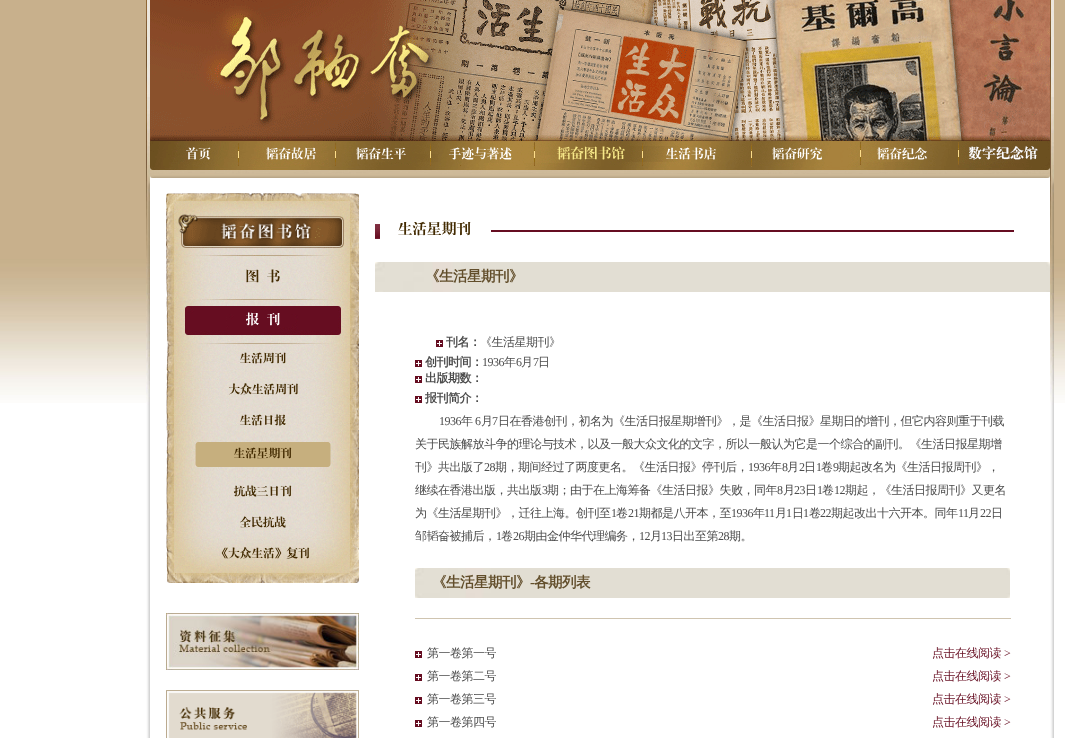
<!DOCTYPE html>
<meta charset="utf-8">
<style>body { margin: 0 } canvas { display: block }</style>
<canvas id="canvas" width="1065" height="738"></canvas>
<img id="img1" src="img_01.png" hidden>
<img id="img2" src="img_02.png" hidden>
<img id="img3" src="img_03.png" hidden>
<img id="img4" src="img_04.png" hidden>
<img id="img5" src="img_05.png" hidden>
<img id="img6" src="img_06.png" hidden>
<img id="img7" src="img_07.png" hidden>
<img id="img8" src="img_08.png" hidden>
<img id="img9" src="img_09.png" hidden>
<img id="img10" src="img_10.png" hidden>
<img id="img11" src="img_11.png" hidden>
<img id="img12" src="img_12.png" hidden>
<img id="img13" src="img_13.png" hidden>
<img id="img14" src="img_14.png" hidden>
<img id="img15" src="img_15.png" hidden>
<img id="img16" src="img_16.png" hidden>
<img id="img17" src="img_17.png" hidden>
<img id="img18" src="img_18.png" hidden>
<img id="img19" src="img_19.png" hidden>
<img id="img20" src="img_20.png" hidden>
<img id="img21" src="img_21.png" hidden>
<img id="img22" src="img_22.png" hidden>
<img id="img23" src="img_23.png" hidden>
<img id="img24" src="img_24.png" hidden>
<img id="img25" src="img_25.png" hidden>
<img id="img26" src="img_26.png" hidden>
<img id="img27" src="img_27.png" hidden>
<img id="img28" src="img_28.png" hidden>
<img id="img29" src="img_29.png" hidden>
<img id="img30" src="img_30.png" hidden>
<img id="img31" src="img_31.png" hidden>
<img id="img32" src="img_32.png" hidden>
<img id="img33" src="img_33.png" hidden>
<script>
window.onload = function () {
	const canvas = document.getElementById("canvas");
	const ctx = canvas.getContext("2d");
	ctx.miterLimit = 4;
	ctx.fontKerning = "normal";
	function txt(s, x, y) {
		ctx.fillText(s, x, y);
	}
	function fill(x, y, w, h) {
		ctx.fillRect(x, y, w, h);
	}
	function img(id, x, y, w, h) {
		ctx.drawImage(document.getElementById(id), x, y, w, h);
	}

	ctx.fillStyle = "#FFFFFF";
	fill(0, 0, 1065, 738);
	img("img1", 0, 0, 1065, 403);
	img("img2", 146, 0, 4, 738);
	img("img3", 150, 0, 900, 141);
	fill(150, 176, 900, 227);
	img("img4", 150, 141, 900, 37);
	img("img5", 186, 147, 25, 13);
	img("img6", 266, 147, 50, 13);
	img("img7", 356, 147, 50, 13);
	img("img8", 449, 147, 63, 13);
	img("img9", 557, 146, 68, 14);
	img("img10", 666, 147, 50, 13);
	img("img11", 772, 147, 50, 13);
	img("img12", 877, 147, 50, 13);
	img("img13", 166, 193, 193, 390);
	img("img14", 246, 269, 13, 14);
	img("img15", 267, 269, 13, 14);
	img("img16", 185, 306, 156, 29);
	img("img17", 246, 312, 13, 14);
	img("img18", 267, 313, 13, 13);
	img("img19", 240, 352, 46, 12);
	img("img20", 229, 383, 69, 12);
	img("img21", 240, 414, 46, 12);
	img("img22", 195, 442, 136, 25);
	img("img23", 234, 447, 58, 12);
	img("img24", 233, 485, 59, 12);
	img("img25", 240, 516, 46, 12);
	img("img26", 221, 547, 89, 12);
	img("img27", 166, 613, 193, 57);
	img("img28", 166, 690, 193, 48);
	img("img29", 375, 224, 5, 15);
	img("img30", 398, 221, 73, 15);
	ctx.fillStyle = "#660D21";
	fill(491, 230, 523, 2);
	img("img31", 375, 262, 675, 30);
	img("img32", 436, 340, 7, 7);
	img("img32", 415, 360, 7, 7);
	img("img32", 415, 376, 7, 7);
	img("img32", 415, 396, 7, 7);
	img("img33", 415, 568, 595, 30);
	ctx.fillStyle = "#CFC4B0";
	fill(415, 618, 596, 1);
	img("img32", 415, 651, 7, 7);
	img("img32", 415, 674, 7, 7);
	img("img32", 415, 697, 7, 7);
	img("img32", 415, 720, 7, 7);
	img("img2", 1050, 0, 4, 738);
	ctx.letterSpacing = "-0.5px";
	ctx.font = "bold 14.5px WenQuanYi Zen Hei";
	ctx.fillStyle = "#624E2B";
	txt("《生活星期刊》", 425, 281);
	ctx.font = "bold 12px WenQuanYi Zen Hei";
	ctx.fillStyle = "#4C4C4C";
	txt("刊名：", 446, 346);
	ctx.font = "500 12px WenQuanYi Zen Hei";
	txt("《生活星期刊》", 480, 346);
	ctx.font = "bold 12px WenQuanYi Zen Hei";
	txt("创刊时间：", 425, 366);
	ctx.font = "12px Liberation Serif";
	txt("1936", 482, 366);
	ctx.font = "500 12px WenQuanYi Zen Hei";
	txt("年", 504, 366);
	ctx.font = "12px Liberation Serif";
	txt("6", 516, 366);
	ctx.font = "500 12px WenQuanYi Zen Hei";
	txt("月", 521, 366);
	ctx.font = "12px Liberation Serif";
	txt("7", 533, 366);
	ctx.font = "500 12px WenQuanYi Zen Hei";
	txt("日", 538, 366);
	ctx.font = "bold 12px WenQuanYi Zen Hei";
	txt("出版期数：", 425, 382);
	txt("报刊简介：", 425, 402);
	ctx.font = "12px Liberation Serif";
	txt("1936", 439, 425);
	ctx.font = "500 12px WenQuanYi Zen Hei";
	txt("年", 461, 425);
	ctx.font = "12px Liberation Serif";
	txt("6", 475, 425);
	ctx.font = "500 12px WenQuanYi Zen Hei";
	txt("月", 481, 425);
	ctx.font = "12px Liberation Serif";
	txt("7", 492, 425);
	ctx.font = "500 12px WenQuanYi Zen Hei";
	txt("日在香港创刊，初名为《生活日报星期增刊》，是《生活日报》星期日的增刊，但它内容则重于刊载", 498, 425);
	txt("关于民族解放斗争的理论与技术，以及一般大众文化的文字，所以一般认为它是一个综合的副刊。《生活日报星期增", 415, 448);
	txt("刊》共出版了", 415, 471);
	ctx.font = "12px Liberation Serif";
	txt("28", 484, 471);
	ctx.font = "500 12px WenQuanYi Zen Hei";
	txt("期，期间经过了两度更名。《生活日报》停刊后，", 495, 471);
	ctx.font = "12px Liberation Serif";
	txt("1936", 748, 471);
	ctx.font = "500 12px WenQuanYi Zen Hei";
	txt("年", 770, 471);
	ctx.font = "12px Liberation Serif";
	txt("8", 782, 471);
	ctx.font = "500 12px WenQuanYi Zen Hei";
	txt("月", 787, 471);
	ctx.font = "12px Liberation Serif";
	txt("2", 799, 471);
	ctx.font = "500 12px WenQuanYi Zen Hei";
	txt("日", 804, 471);
	ctx.font = "12px Liberation Serif";
	txt("1", 816, 471);
	ctx.font = "500 12px WenQuanYi Zen Hei";
	txt("卷", 821, 471);
	ctx.font = "12px Liberation Serif";
	txt("9", 833, 471);
	ctx.font = "500 12px WenQuanYi Zen Hei";
	txt("期起改名为《生活日报周刊》，", 838, 471);
	txt("继续在香港出版，共出版", 415, 494);
	ctx.font = "12px Liberation Serif";
	txt("3", 542, 494);
	ctx.font = "500 12px WenQuanYi Zen Hei";
	txt("期；由于在上海筹备《生活日报》失败，同年", 547, 494);
	ctx.font = "12px Liberation Serif";
	txt("8", 777, 494);
	ctx.font = "500 12px WenQuanYi Zen Hei";
	txt("月", 783, 494);
	ctx.font = "12px Liberation Serif";
	txt("23", 794, 494);
	ctx.font = "500 12px WenQuanYi Zen Hei";
	txt("日", 805, 494);
	ctx.font = "12px Liberation Serif";
	txt("1", 817, 494);
	ctx.font = "500 12px WenQuanYi Zen Hei";
	txt("卷", 822, 494);
	ctx.font = "12px Liberation Serif";
	txt("12", 834, 494);
	ctx.font = "500 12px WenQuanYi Zen Hei";
	txt("期起，《生活日报周刊》又更名", 845, 494);
	txt("为《生活星期刊》，迁往上海。创刊至", 415, 517);
	ctx.font = "12px Liberation Serif";
	txt("1", 611, 517);
	ctx.font = "500 12px WenQuanYi Zen Hei";
	txt("卷", 616, 517);
	ctx.font = "12px Liberation Serif";
	txt("21", 628, 517);
	ctx.font = "500 12px WenQuanYi Zen Hei";
	txt("期都是八开本，至", 639, 517);
	ctx.font = "12px Liberation Serif";
	txt("1936", 731, 517);
	ctx.font = "500 12px WenQuanYi Zen Hei";
	txt("年", 753, 517);
	ctx.font = "12px Liberation Serif";
	txt("11", 764, 517);
	ctx.font = "500 12px WenQuanYi Zen Hei";
	txt("月", 775, 517);
	ctx.font = "12px Liberation Serif";
	txt("1", 786, 517);
	ctx.font = "500 12px WenQuanYi Zen Hei";
	txt("日", 792, 517);
	ctx.font = "12px Liberation Serif";
	txt("1", 803, 517);
	ctx.font = "500 12px WenQuanYi Zen Hei";
	txt("卷", 809, 517);
	ctx.font = "12px Liberation Serif";
	txt("22", 820, 517);
	ctx.font = "500 12px WenQuanYi Zen Hei";
	txt("期起改出十六开本。同年", 831, 517);
	ctx.font = "12px Liberation Serif";
	txt("11", 958, 517);
	ctx.font = "500 12px WenQuanYi Zen Hei";
	txt("月", 968, 517);
	ctx.font = "12px Liberation Serif";
	txt("22", 980, 517);
	ctx.font = "500 12px WenQuanYi Zen Hei";
	txt("日", 991, 517);
	txt("邹韬奋被捕后，", 415, 540);
	ctx.font = "12px Liberation Serif";
	txt("1", 496, 540);
	ctx.font = "500 12px WenQuanYi Zen Hei";
	txt("卷", 501, 540);
	ctx.font = "12px Liberation Serif";
	txt("26", 513, 540);
	ctx.font = "500 12px WenQuanYi Zen Hei";
	txt("期由金仲华代理编务，", 524, 540);
	ctx.font = "12px Liberation Serif";
	txt("12", 639, 540);
	ctx.font = "500 12px WenQuanYi Zen Hei";
	txt("月", 650, 540);
	ctx.font = "12px Liberation Serif";
	txt("13", 661, 540);
	ctx.font = "500 12px WenQuanYi Zen Hei";
	txt("日出至第", 672, 540);
	ctx.font = "12px Liberation Serif";
	txt("28", 718, 540);
	ctx.font = "500 12px WenQuanYi Zen Hei";
	txt("期。", 729, 540);
	ctx.font = "bold 14.5px WenQuanYi Zen Hei";
	ctx.fillStyle = "#624E2B";
	txt("《生活星期刊》", 432, 587);
	ctx.font = "bold 14.5px Liberation Serif";
	txt("-", 530, 587);
	ctx.font = "bold 14.5px WenQuanYi Zen Hei";
	txt("各期列表", 534, 587);
	ctx.font = "500 12px WenQuanYi Zen Hei";
	ctx.fillStyle = "#4C4C4C";
	txt("第一卷第一号", 427, 657);
	ctx.fillStyle = "#660D21";
	txt("点击在线阅读", 932, 657);
	ctx.font = "12px Liberation Serif";
	txt(">", 1004, 657);
	ctx.font = "500 12px WenQuanYi Zen Hei";
	ctx.fillStyle = "#4C4C4C";
	txt("第一卷第二号", 427, 680);
	ctx.fillStyle = "#660D21";
	txt("点击在线阅读", 932, 680);
	ctx.font = "12px Liberation Serif";
	txt(">", 1004, 680);
	ctx.font = "500 12px WenQuanYi Zen Hei";
	ctx.fillStyle = "#4C4C4C";
	txt("第一卷第三号", 427, 703);
	ctx.fillStyle = "#660D21";
	txt("点击在线阅读", 932, 703);
	ctx.font = "12px Liberation Serif";
	txt(">", 1004, 703);
	ctx.font = "500 12px WenQuanYi Zen Hei";
	ctx.fillStyle = "#4C4C4C";
	txt("第一卷第四号", 427, 726);
	ctx.fillStyle = "#660D21";
	txt("点击在线阅读", 932, 726);
	ctx.font = "12px Liberation Serif";
	txt(">", 1004, 726);
};
</script>
